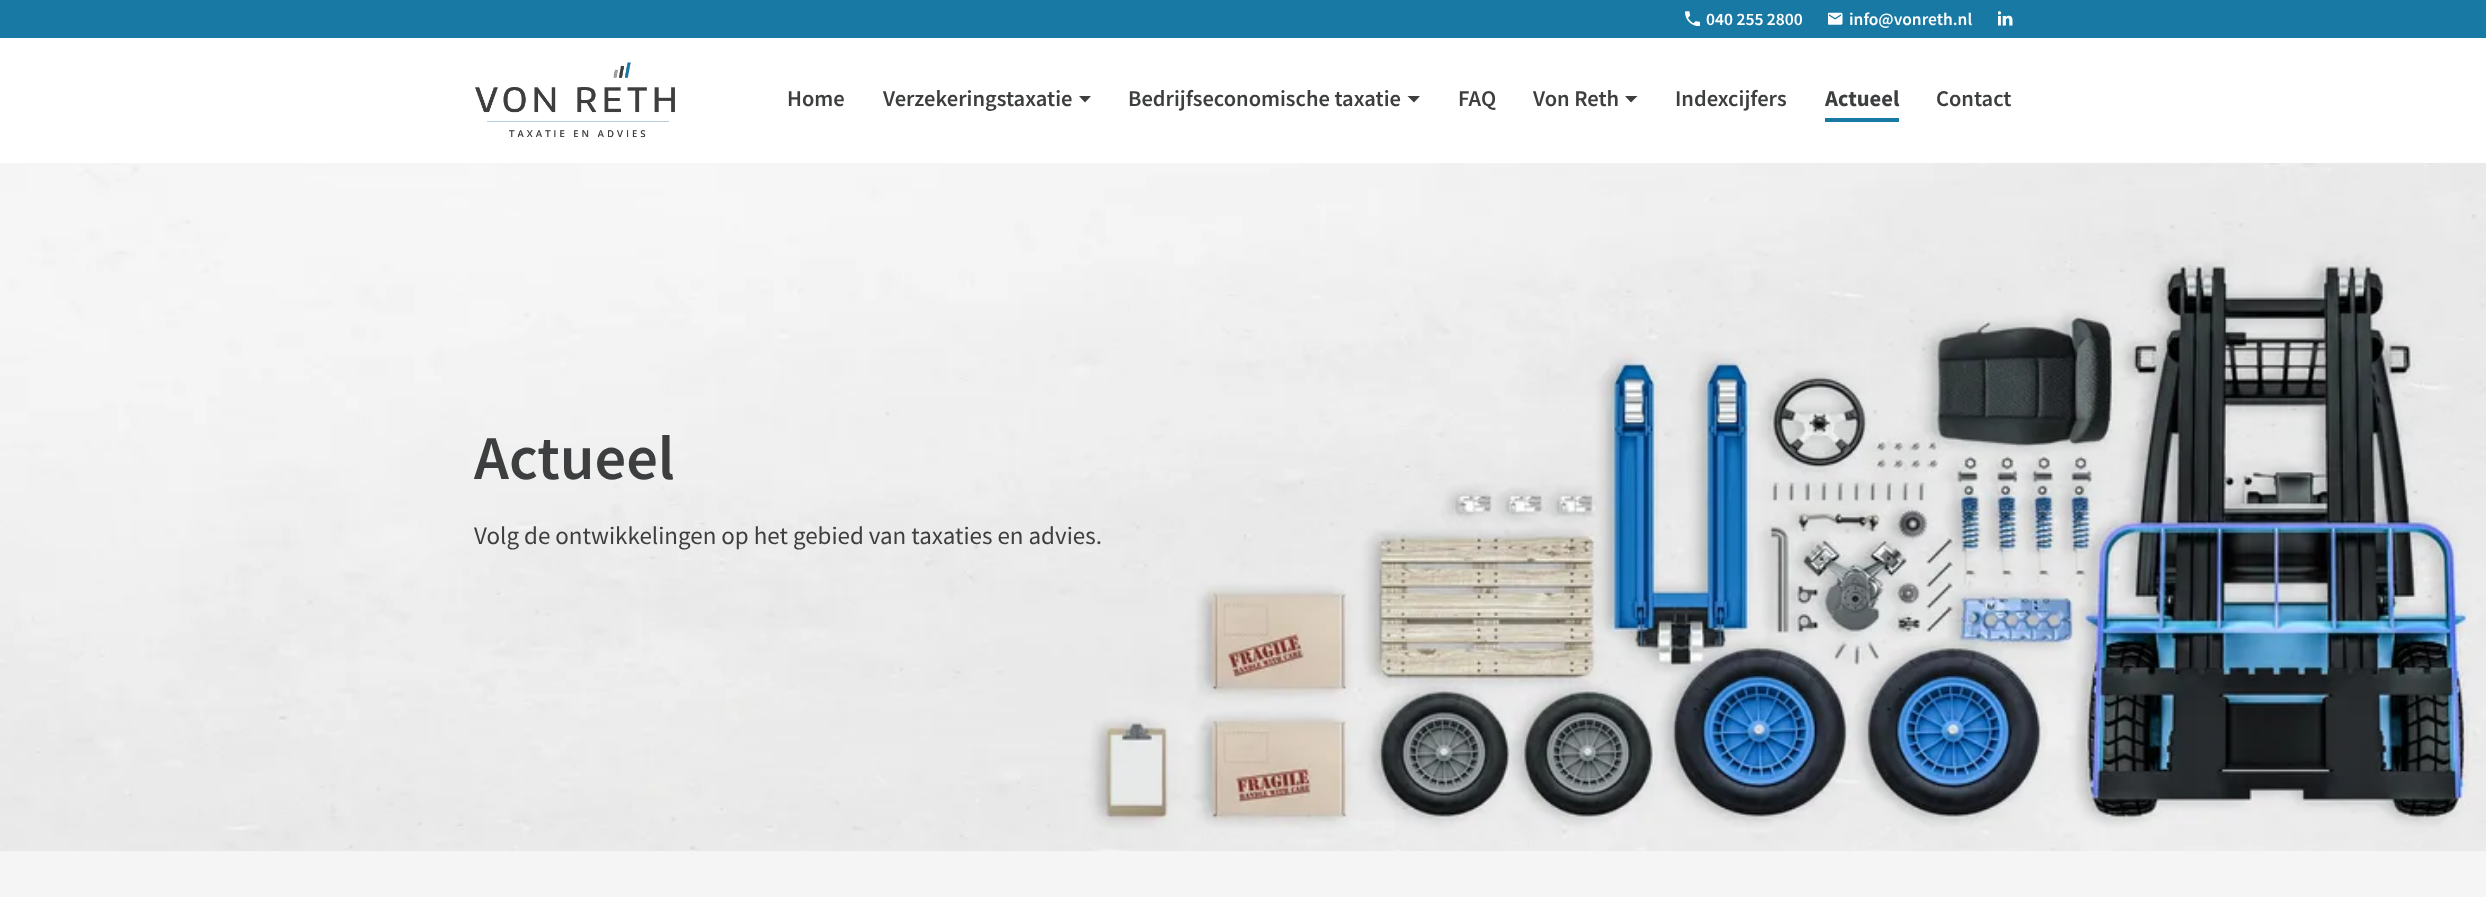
<!DOCTYPE html>
<meta charset="utf-8">
<style>body { margin: 0 } canvas { display: block }</style>
<canvas id="canvas" width="2486" height="897"></canvas>
<img id="img1" src="img_01.png" hidden>
<img id="img2" src="img_02.png" hidden>
<img id="img3" src="img_03.png" hidden>
<img id="img4" src="img_04.png" hidden>
<img id="img5" src="img_05.png" hidden>
<script>
window.onload = function () {
	const canvas = document.getElementById("canvas");
	const ctx = canvas.getContext("2d");
	ctx.miterLimit = 4;
	ctx.fontKerning = "normal";
	function txt(s, x, y) {
		ctx.fillText(s, x, y);
	}
	function fill(x, y, w, h) {
		ctx.fillRect(x, y, w, h);
	}
	function img(id, x, y, w, h) {
		ctx.drawImage(document.getElementById(id), x, y, w, h);
	}

	ctx.fillStyle = "#F5F5F5";
	fill(0, 0, 2486, 897);
	ctx.fillStyle = "#FFFFFF";
	fill(0, 38, 2486, 125);
	ctx.fillStyle = "#1779A4";
	fill(0, 0, 2486, 38);
	img("img1", 1685, 11, 15, 15);
	img("img2", 1828, 12, 15, 13);
	img("img3", 1998, 11, 15, 15);
	img("img4", 475, 62, 200, 76);
	ctx.fillStyle = "#3D3E3F";
	ctx.beginPath();
	ctx.moveTo(1079, 96);
	ctx.lineTo(1091, 96);
	ctx.lineTo(1085, 102.5);
	ctx.closePath();
	ctx.fill();
	ctx.beginPath();
	ctx.moveTo(1407.5, 96);
	ctx.lineTo(1420, 96);
	ctx.lineTo(1414, 102.5);
	ctx.closePath();
	ctx.fill();
	ctx.beginPath();
	ctx.moveTo(1625, 96);
	ctx.lineTo(1637.5, 96);
	ctx.lineTo(1631, 102.5);
	ctx.closePath();
	ctx.fill();
	ctx.fillStyle = "#1779A4";
	fill(1825, 118, 74, 4);
	img("img5", 0, 163, 2486, 688);
	ctx.font = "600 17.5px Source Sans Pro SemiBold";
	ctx.fillStyle = "#FFFFFF";
	txt("040 255 2800", 1706, 25);
	txt("info@vonreth.nl", 1849, 25);
	ctx.font = "600 22.5px Source Sans Pro SemiBold";
	ctx.fillStyle = "#3D3E3F";
	txt("Home", 787, 106);
	txt("Verzekeringstaxatie", 883, 106);
	txt("Bedrijfseconomische taxatie", 1128, 106);
	txt("FAQ", 1458, 106);
	txt("Von Reth", 1533, 106);
	txt("Indexcijfers", 1675, 106);
	ctx.font = "bold 22.5px Source Sans Pro";
	txt("Actueel", 1825, 106);
	ctx.font = "600 22.5px Source Sans Pro SemiBold";
	txt("Contact", 1936, 106);
	ctx.font = "600 62.5px Source Sans Pro SemiBold";
	txt("Actueel", 474, 479);
	ctx.font = "25px Source Sans Pro";
	txt("Volg de ontwikkelingen op het gebied van taxaties en advies.", 474, 544);
};
</script>
